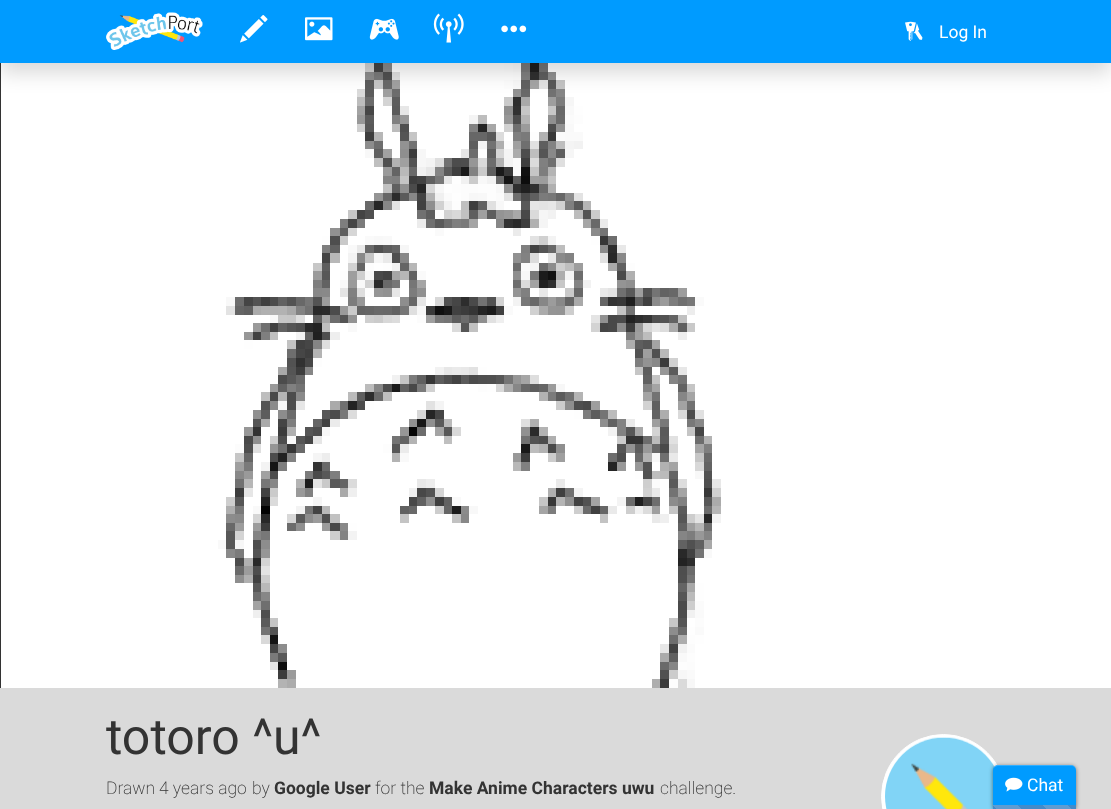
<!DOCTYPE html>
<meta charset="utf-8">
<style>body { margin: 0 } canvas { display: block }</style>
<canvas id="canvas" width="1111" height="809"></canvas>
<img id="img1" src="img_08.png" hidden>
<img id="img2" src="img_01.png" hidden>
<img id="img3" src="img_02.png" hidden>
<img id="img4" src="img_03.png" hidden>
<img id="img5" src="img_04.png" hidden>
<img id="img6" src="img_05.png" hidden>
<img id="img7" src="img_06.png" hidden>
<img id="img8" src="img_07.png" hidden>
<img id="img9" src="img_09.png" hidden>
<img id="img10" src="img_10.png" hidden>
<script>
window.onload = function () {
	const canvas = document.getElementById("canvas");
	const ctx = canvas.getContext("2d");
	ctx.miterLimit = 4;
	ctx.fontKerning = "normal";
	function txt(s, x, y) {
		ctx.fillText(s, x, y);
	}
	function fill(x, y, w, h) {
		ctx.fillRect(x, y, w, h);
	}
	function img(id, x, y, w, h) {
		ctx.drawImage(document.getElementById(id), x, y, w, h);
	}
	let gradient;

	ctx.fillStyle = "#DADADA";
	fill(0, 0, 1111, 809);
	ctx.fillStyle = "#333333";
	fill(0, 63, 1, 625);
	img("img1", 1, 63, 1110, 625);
	ctx.fillStyle = "rgba(0, 0, 0, 0.15)";
	ctx.filter = "blur(10px)";
	ctx.beginPath();
	ctx.rect(0, 10, 1111, 63);
	ctx.fill();
	ctx.filter = "none";
	ctx.fillStyle = "#009BFF";
	fill(0, 0, 1111, 63);
	img("img2", 106, 12, 97, 38);
	img("img3", 240, 15, 28, 28);
	img("img4", 305, 17, 28, 24);
	img("img5", 369, 18, 30, 22);
	img("img6", 433, 13, 31, 30);
	img("img7", 501, 25, 26, 8);
	img("img8", 905, 21, 18, 20);
	ctx.fillStyle = "#FFFFFF";
	ctx.beginPath();
	ctx.arc(943.5, 796.5, 62, 0, Math.PI * 2);
	ctx.fill();
	ctx.strokeStyle = "#FFFFFF";
	ctx.stroke();
	img("img9", 885, 737, 110, 72);
	ctx.fillStyle = "rgba(0, 0, 0, 0.5)";
	ctx.filter = "blur(2px)";
	ctx.beginPath();
	ctx.roundRect(993, 766, 83, 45, 5);
	ctx.fill();
	ctx.filter = "none";
	ctx.fillStyle = "#009BFF";
	ctx.beginPath();
	ctx.roundRect(993, 765, 83, 40, [5, 5, 0, 0]);
	ctx.fill();
	ctx.fillStyle = "rgba(255, 255, 255, 0.2)";
	ctx.beginPath();
	ctx.moveTo(998, 766);
	ctx.lineTo(1071, 766);
	ctx.bezierCurveTo(1074, 766, 1076, 768, 1076, 771);
	ctx.lineTo(1076, 770);
	ctx.bezierCurveTo(1076, 767, 1074, 765, 1071, 765);
	ctx.lineTo(998, 765);
	ctx.bezierCurveTo(996, 765, 994, 766, 994, 768);
	ctx.bezierCurveTo(995, 767, 996, 766, 998, 766);
	ctx.closePath();
	ctx.fill();
	img("img10", 1005, 777, 18, 15);
	gradient = ctx.createLinearGradient(993, 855, 1043, 805);
	gradient.addColorStop(0.25, "#5E9CD2");
	gradient.addColorStop(0.25, "#428BCA");
	gradient.addColorStop(0.5, "#428BCA");
	gradient.addColorStop(0.5, "#5E9CD2");
	gradient.addColorStop(0.75, "#5E9CD2");
	gradient.addColorStop(0.75, "#428BCA");
	gradient.addColorStop(1, "#428BCA");
	ctx.fillStyle = gradient;
	fill(993, 805, 50, 4);
	gradient = ctx.createLinearGradient(1043, 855, 1093, 805);
	gradient.addColorStop(0.25, "#5E9CD2");
	gradient.addColorStop(0.25, "#428BCA");
	gradient.addColorStop(0.5, "#428BCA");
	gradient.addColorStop(0.5, "#5E9CD2");
	gradient.addColorStop(0.75, "#5E9CD2");
	gradient.addColorStop(0.75, "#428BCA");
	gradient.addColorStop(1, "#428BCA");
	ctx.fillStyle = gradient;
	fill(1043, 805, 33, 4);
	ctx.font = "17.5px Roboto";
	ctx.fillStyle = "#FFFFFF";
	txt("Log In", 939, 38);
	ctx.save();
	ctx.beginPath();
	ctx.rect(106, 713, 825, 50);
	ctx.clip();
	ctx.font = "50px Roboto";
	ctx.fillStyle = "#333333";
	txt("totoro ^u^", 106, 754);
	ctx.restore();
	ctx.font = "200 17.5px Roboto";
	ctx.fillStyle = "#333333";
	txt("Drawn", 106, 794);
	txt("4 years ago", 159, 794);
	txt("by", 252, 794);
	ctx.font = "bold 17.5px Roboto";
	txt("Google User", 274, 794);
	ctx.font = "200 17.5px Roboto";
	txt("for the", 375, 794);
	ctx.font = "bold 17.5px Roboto";
	txt("Make Anime Characters uwu", 429, 794);
	ctx.font = "200 17.5px Roboto";
	txt("challenge.", 660, 794);
	ctx.font = "17.5px Roboto";
	ctx.fillStyle = "#FFFFFF";
	txt("Chat", 1027, 791);
};
</script>
